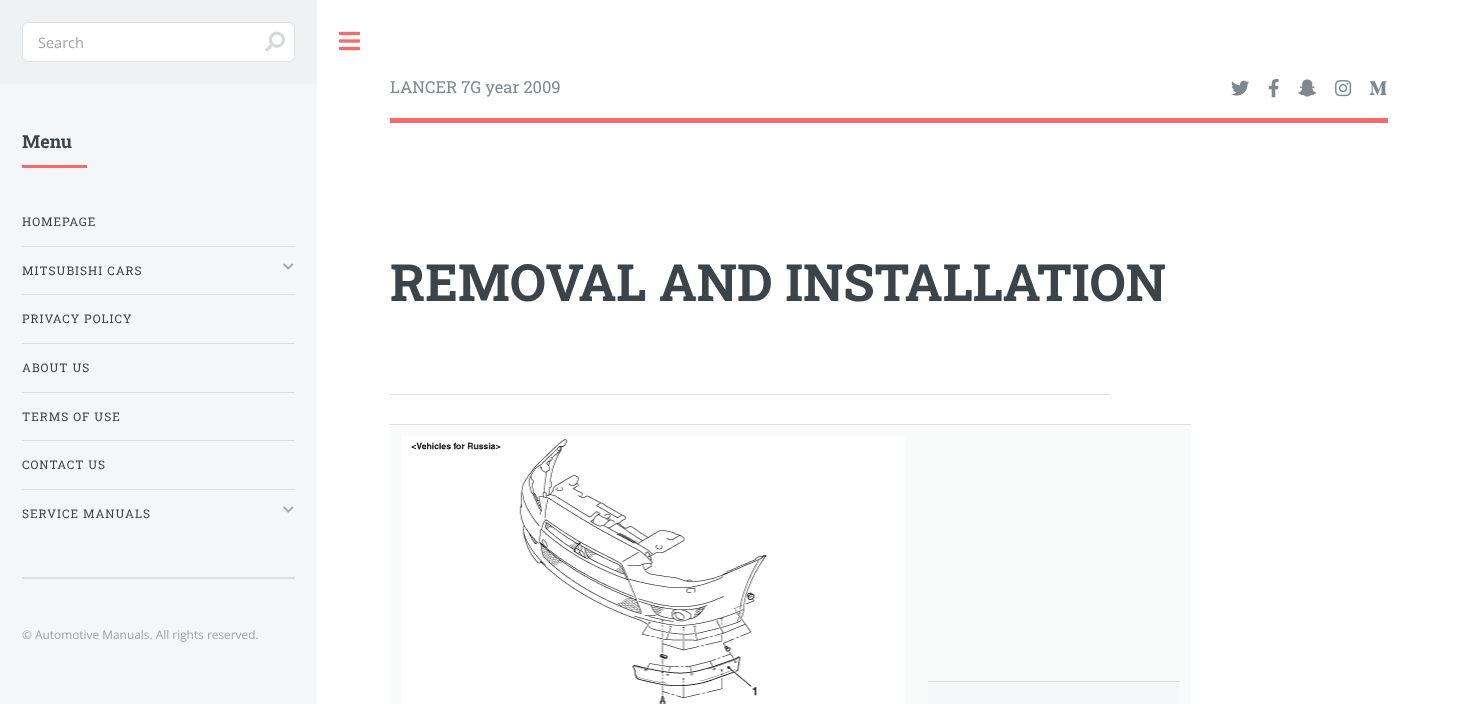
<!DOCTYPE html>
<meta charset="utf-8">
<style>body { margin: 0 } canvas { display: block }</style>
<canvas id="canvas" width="1461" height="704"></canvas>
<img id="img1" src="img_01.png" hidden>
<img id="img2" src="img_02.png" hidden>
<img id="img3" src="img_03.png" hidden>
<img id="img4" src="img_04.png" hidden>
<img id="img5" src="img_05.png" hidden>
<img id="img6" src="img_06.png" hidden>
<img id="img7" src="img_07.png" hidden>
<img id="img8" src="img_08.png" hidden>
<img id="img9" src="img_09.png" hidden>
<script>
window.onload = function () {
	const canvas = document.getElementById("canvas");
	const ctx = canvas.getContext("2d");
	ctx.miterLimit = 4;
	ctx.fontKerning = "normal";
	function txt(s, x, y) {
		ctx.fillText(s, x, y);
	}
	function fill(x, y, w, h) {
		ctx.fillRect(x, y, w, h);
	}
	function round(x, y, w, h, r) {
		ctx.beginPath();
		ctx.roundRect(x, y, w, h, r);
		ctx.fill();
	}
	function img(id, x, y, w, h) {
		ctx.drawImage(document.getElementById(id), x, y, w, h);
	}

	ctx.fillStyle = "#FFFFFF";
	fill(0, 0, 1461, 704);
	ctx.fillStyle = "#F5F6F7";
	fill(0, 84, 317, 620);
	ctx.fillStyle = "#EFF1F2";
	fill(0, 0, 317, 84);
	ctx.fillStyle = "#FFFFFF";
	round(22, 22, 273, 40, 6);
	ctx.beginPath();
	ctx.roundRect(22.5, 22.5, 272, 39, 5.5);
	ctx.strokeStyle = "rgba(210, 215, 217, 0.75)";
	ctx.stroke();
	img("img1", 265, 31, 20, 21);
	ctx.fillStyle = "#DBDFE1";
	fill(22, 577, 273, 2);
	ctx.fillStyle = "#F56A6A";
	fill(22, 165, 65, 3);
	ctx.fillStyle = "#DBDFE1";
	fill(22, 246, 273, 1);
	img("img2", 283, 263, 11, 7);
	fill(22, 294, 273, 1);
	fill(22, 343, 273, 1);
	fill(22, 392, 273, 1);
	fill(22, 440, 273, 1);
	fill(22, 489, 273, 1);
	img("img2", 283, 506, 11, 7);
	img("img3", 339, 31, 21, 20);
	ctx.fillStyle = "#F56A6A";
	fill(390, 118, 998, 5);
	img("img4", 1231, 80, 19, 16);
	img("img5", 1268, 79, 11, 19);
	img("img6", 1298, 79, 19, 18);
	img("img7", 1335, 80, 17, 17);
	img("img8", 1369, 81, 18, 14);
	ctx.fillStyle = "#DDE1E3";
	fill(390, 394, 720, 1);
	ctx.fillStyle = "#F9FBFB";
	fill(390, 425, 800, 279);
	ctx.fillStyle = "#DCE0E2";
	fill(1179, 681, 1, 1);
	ctx.fillStyle = "#DDE1E3";
	fill(390, 424, 801, 1);
	img("img9", 401, 436, 505, 268);
	ctx.fillStyle = "#F4F7F8";
	fill(928, 682, 251, 22);
	ctx.fillStyle = "#DBDFE1";
	fill(928, 681, 251, 1);
	ctx.font = "14.5px Open Sans";
	ctx.fillStyle = "#9FA3A6";
	txt("Search", 38, 48);
	ctx.font = "bold 18px Roboto Slab";
	ctx.fillStyle = "#3D4449";
	txt("Menu", 22, 148);
	ctx.letterSpacing = "1px";
	ctx.font = "11.9px Roboto Slab";
	txt("HOMEPAGE", 22, 226);
	txt("MITSUBISHI CARS", 22, 275);
	txt("PRIVACY POLICY", 22, 323);
	txt("ABOUT US", 22, 372);
	txt("TERMS OF USE", 22, 421);
	txt("CONTACT US", 22, 469);
	txt("SERVICE MANUALS", 22, 518);
	ctx.letterSpacing = "0px";
	ctx.font = "11.9px Open Sans";
	ctx.fillStyle = "#9FA3A6";
	txt("© Automotive Manuals. All rights reserved.", 22, 639);
	ctx.font = "16.5px Roboto Slab";
	ctx.fillStyle = "#7F888F";
	txt("LANCER 7G year 2009", 390, 93);
	ctx.font = "bold 51.3px Roboto Slab";
	ctx.fillStyle = "#3D4449";
	txt("REMOVAL AND INSTALLATION", 390, 301);
};
</script>
